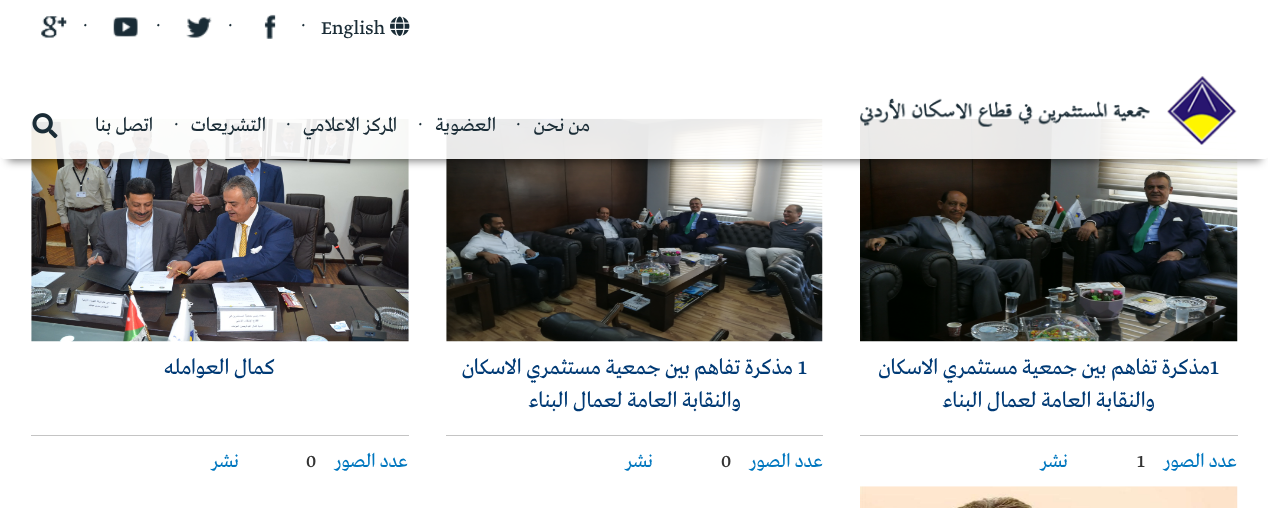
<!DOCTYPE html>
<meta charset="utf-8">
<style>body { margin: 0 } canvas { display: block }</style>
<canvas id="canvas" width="1268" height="508"></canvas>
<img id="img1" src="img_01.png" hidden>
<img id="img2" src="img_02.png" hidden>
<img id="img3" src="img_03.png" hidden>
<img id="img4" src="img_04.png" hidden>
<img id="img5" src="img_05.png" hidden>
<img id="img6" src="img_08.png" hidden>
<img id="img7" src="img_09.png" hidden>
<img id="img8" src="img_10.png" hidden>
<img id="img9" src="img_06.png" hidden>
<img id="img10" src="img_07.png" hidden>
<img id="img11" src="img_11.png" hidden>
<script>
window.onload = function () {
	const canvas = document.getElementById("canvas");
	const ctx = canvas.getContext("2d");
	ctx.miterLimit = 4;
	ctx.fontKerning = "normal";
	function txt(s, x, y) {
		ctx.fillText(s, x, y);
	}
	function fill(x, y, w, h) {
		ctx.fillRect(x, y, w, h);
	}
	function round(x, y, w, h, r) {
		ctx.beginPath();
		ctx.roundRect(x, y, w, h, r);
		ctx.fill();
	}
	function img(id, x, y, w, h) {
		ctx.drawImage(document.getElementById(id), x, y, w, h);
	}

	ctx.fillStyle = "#FFFFFF";
	fill(0, 0, 1268, 508);
	img("img1", 390, 16, 20, 20);
	img("img2", 264, 14, 12, 25);
	img("img3", 186, 17, 26, 21);
	img("img4", 113, 17, 25, 20);
	img("img5", 41, 16, 26, 22);
	img("img6", 860, 118, 378, 224);
	img("img7", 446, 118, 377, 224);
	img("img8", 31, 118, 378, 224);
	ctx.save();
	ctx.beginPath();
	ctx.moveTo(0, 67);
	ctx.lineTo(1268, 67);
	ctx.lineTo(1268, 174);
	ctx.lineTo(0, 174);
	ctx.closePath();
	ctx.moveTo(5, 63);
	ctx.lineTo(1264, 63);
	ctx.bezierCurveTo(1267, 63, 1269, 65, 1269, 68);
	ctx.lineTo(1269, 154);
	ctx.bezierCurveTo(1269, 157, 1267, 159, 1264, 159);
	ctx.lineTo(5, 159);
	ctx.bezierCurveTo(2, 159, 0, 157, 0, 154);
	ctx.lineTo(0, 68);
	ctx.bezierCurveTo(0, 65, 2, 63, 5, 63);
	ctx.closePath();
	ctx.clip("evenodd");
	ctx.fillStyle = "rgba(0, 0, 0, 0.5)";
	ctx.filter = "blur(4px)";
	ctx.beginPath();
	ctx.rect(8, 80, 1253, 81);
	ctx.fill();
	ctx.filter = "none";
	ctx.restore();
	ctx.fillStyle = "rgba(255, 255, 255, 0.9)";
	round(0, 63, 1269, 96, 5);
	img("img9", 860, 76, 377, 69);
	img("img10", 32, 113, 26, 26);
	ctx.fillStyle = "#C4C4C4";
	fill(860, 435, 378, 1);
	fill(446, 435, 377, 1);
	fill(31, 435, 378, 1);
	img("img11", 860, 486, 378, 22);
	ctx.font = "20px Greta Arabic";
	ctx.fillStyle = "#1A2C36";
	txt("English", 321, 34);
	txt(".", 301, 26);
	txt(".", 228, 26);
	txt(".", 156, 26);
	txt(".", 83, 26);
	ctx.direction = "rtl";
	txt("من نحن", 590, 131);
	ctx.direction = "ltr";
	txt(".", 516, 125);
	ctx.direction = "rtl";
	txt("العضوية", 496, 131);
	ctx.direction = "ltr";
	txt(".", 418, 125);
	ctx.direction = "rtl";
	txt("المركز الاعلامي", 397, 131);
	ctx.direction = "ltr";
	txt(".", 286, 125);
	ctx.direction = "rtl";
	txt("التشريعات", 266, 131);
	ctx.direction = "ltr";
	txt(".", 174, 125);
	ctx.direction = "rtl";
	txt("اتصل بنا", 153, 131);
	ctx.direction = "ltr";
	ctx.font = "22.5px Greta Arabic";
	ctx.fillStyle = "#003A75";
	txt("1", 1210, 374);
	ctx.direction = "rtl";
	txt("مذكرة تفاهم بين جمعية مستثمري الاسكان", 1210, 374);
	txt("والنقابة العامة لعمال البناء", 1155, 407);
	ctx.font = "20px Greta Arabic";
	ctx.fillStyle = "#0177BF";
	txt("عدد الصور", 1237, 467);
	ctx.direction = "ltr";
	ctx.fillStyle = "#333333";
	txt("1", 1137, 467);
	ctx.direction = "rtl";
	ctx.fillStyle = "#0177BF";
	txt("نشر", 1068, 467);
	ctx.direction = "ltr";
	ctx.font = "22.5px Greta Arabic";
	ctx.fillStyle = "#003A75";
	txt("1", 798, 374);
	ctx.direction = "rtl";
	txt("مذكرة تفاهم", 793, 374);
	txt("بين جمعية مستثمري الاسكان", 690, 374);
	txt("والنقابة العامة لعمال البناء", 741, 407);
	ctx.font = "20px Greta Arabic";
	ctx.fillStyle = "#0177BF";
	txt("عدد الصور", 823, 467);
	ctx.direction = "ltr";
	ctx.fillStyle = "#333333";
	txt("0", 721, 467);
	ctx.direction = "rtl";
	ctx.fillStyle = "#0177BF";
	txt("نشر", 653, 467);
	ctx.font = "22.5px Greta Arabic";
	ctx.fillStyle = "#003A75";
	txt("كمال العوامله", 275, 374);
	ctx.font = "20px Greta Arabic";
	ctx.fillStyle = "#0177BF";
	txt("عدد الصور", 408, 467);
	ctx.direction = "ltr";
	ctx.fillStyle = "#333333";
	txt("0", 306, 467);
	ctx.direction = "rtl";
	ctx.fillStyle = "#0177BF";
	txt("نشر", 239, 467);
};
</script>
